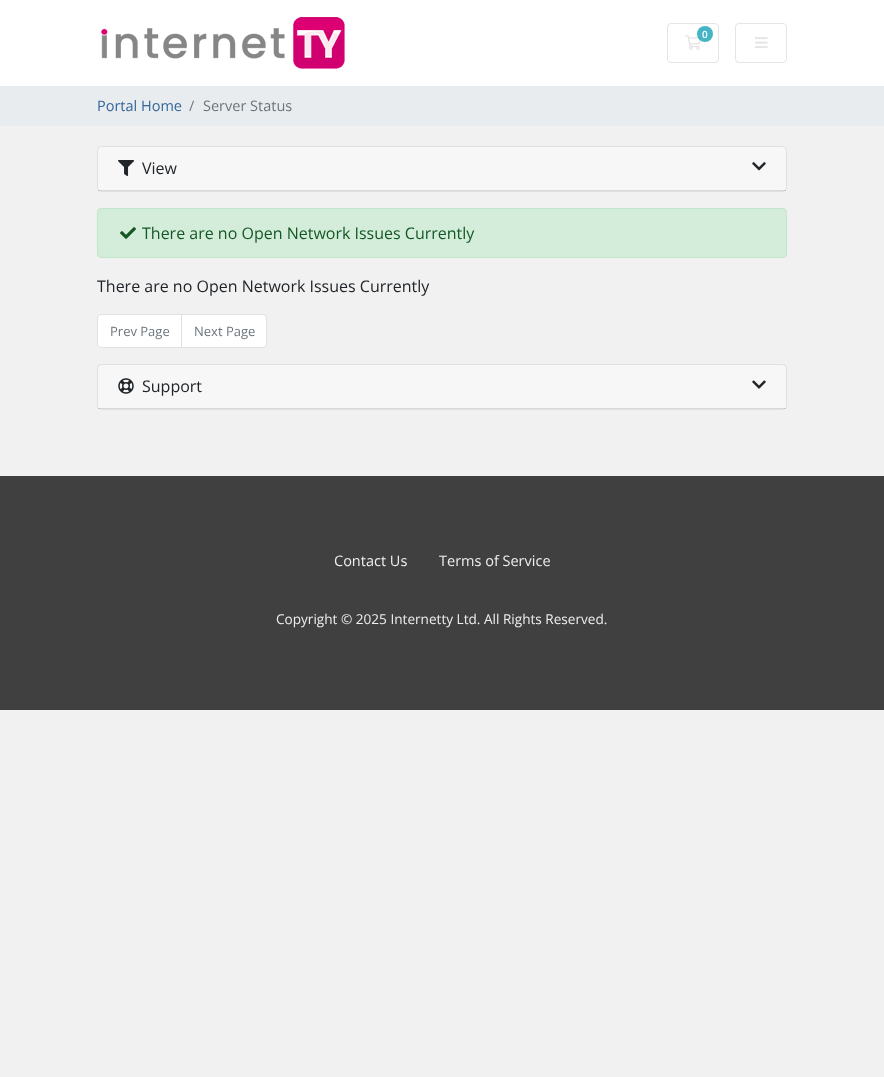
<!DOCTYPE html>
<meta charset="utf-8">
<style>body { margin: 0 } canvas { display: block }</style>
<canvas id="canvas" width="884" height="1077"></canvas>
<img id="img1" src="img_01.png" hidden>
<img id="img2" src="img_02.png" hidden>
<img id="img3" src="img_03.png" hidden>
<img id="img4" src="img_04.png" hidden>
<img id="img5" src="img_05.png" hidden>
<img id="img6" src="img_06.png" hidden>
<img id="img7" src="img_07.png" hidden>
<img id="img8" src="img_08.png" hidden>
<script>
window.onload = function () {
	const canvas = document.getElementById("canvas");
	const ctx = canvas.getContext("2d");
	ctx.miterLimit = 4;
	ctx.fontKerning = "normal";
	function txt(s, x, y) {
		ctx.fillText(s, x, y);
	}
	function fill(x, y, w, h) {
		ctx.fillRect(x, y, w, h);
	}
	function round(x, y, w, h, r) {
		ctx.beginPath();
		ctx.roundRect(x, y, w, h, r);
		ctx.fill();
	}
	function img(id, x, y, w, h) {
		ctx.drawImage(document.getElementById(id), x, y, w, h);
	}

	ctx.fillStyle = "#F1F1F1";
	fill(0, 0, 884, 1077);
	ctx.fillStyle = "#FFFFFF";
	fill(0, 0, 884, 86);
	img("img1", 101, 17, 244, 52);
	ctx.beginPath();
	ctx.roundRect(667.5, 23.5, 51, 39, 3.5);
	ctx.strokeStyle = "#E5E5E5";
	ctx.stroke();
	img("img2", 685, 35, 16, 15);
	ctx.fillStyle = "rgba(23, 162, 184, 0.8)";
	ctx.beginPath();
	ctx.arc(705, 34, 8, 0, Math.PI * 2);
	ctx.fill();
	ctx.beginPath();
	ctx.roundRect(735.5, 23.5, 51, 39, 3.5);
	ctx.stroke();
	img("img3", 755, 37, 13, 11);
	ctx.fillStyle = "#E9ECEF";
	fill(0, 86, 884, 40);
	ctx.fillStyle = "#FFFFFF";
	round(97, 146, 690, 46, 4);
	ctx.beginPath();
	ctx.roundRect(97.5, 146.5, 689, 45, 3.5);
	ctx.strokeStyle = "rgba(0, 0, 0, 0.12)";
	ctx.stroke();
	ctx.fillStyle = "rgba(0, 0, 0, 0.03)";
	fill(98, 147, 688, 44);
	ctx.fillStyle = "rgba(0, 0, 0, 0.12)";
	fill(98, 190, 688, 1);
	img("img4", 118, 160, 16, 16);
	img("img5", 752, 162, 14, 9);
	ctx.fillStyle = "#D4EDDA";
	ctx.beginPath();
	ctx.roundRect(97.5, 208.5, 689, 49, 3.5);
	ctx.fill();
	ctx.strokeStyle = "#C3E6CB";
	ctx.stroke();
	img("img6", 120, 227, 16, 12);
	ctx.fillStyle = "#FFFFFF";
	ctx.beginPath();
	ctx.roundRect(97.5, 314.5, 84, 33, [3.5, 0, 0, 3.5]);
	ctx.fill();
	ctx.strokeStyle = "#DEE2E6";
	ctx.stroke();
	ctx.beginPath();
	ctx.roundRect(181.5, 314.5, 85, 33, [0, 3.5, 3.5, 0]);
	ctx.fill();
	ctx.stroke();
	round(97, 364, 690, 46, 4);
	ctx.beginPath();
	ctx.roundRect(97.5, 364.5, 689, 45, 3.5);
	ctx.strokeStyle = "rgba(0, 0, 0, 0.12)";
	ctx.stroke();
	ctx.fillStyle = "rgba(0, 0, 0, 0.03)";
	fill(98, 365, 688, 44);
	ctx.fillStyle = "rgba(0, 0, 0, 0.12)";
	fill(98, 408, 688, 1);
	img("img7", 118, 378, 16, 16);
	img("img8", 752, 380, 14, 9);
	ctx.fillStyle = "#404040";
	fill(0, 476, 884, 234);
	ctx.font = "600 10px Open Sans";
	ctx.fillStyle = "#FFFFFF";
	txt("0", 702, 38);
	ctx.font = "14.5px Open Sans";
	ctx.fillStyle = "#336699";
	txt("Portal Home", 97, 111);
	ctx.fillStyle = "#6C757D";
	txt("/", 189, 111);
	txt("Server Status", 203, 111);
	ctx.font = "16px Open Sans";
	ctx.fillStyle = "#212529";
	txt("View", 142, 174);
	ctx.fillStyle = "#155724";
	txt("There are no Open Network Issues Currently", 142, 239);
	ctx.fillStyle = "#212529";
	txt("There are no Open Network Issues Currently", 97, 292);
	ctx.font = "13px Open Sans";
	ctx.fillStyle = "#6C757D";
	txt("Prev Page", 110, 336);
	txt("Next Page", 194, 336);
	ctx.font = "16px Open Sans";
	ctx.fillStyle = "#212529";
	txt("Support", 142, 392);
	ctx.font = "14.5px Open Sans";
	ctx.fillStyle = "#EEEEEE";
	txt("Contact Us", 334, 566);
	txt("Terms of Service", 439, 566);
	ctx.font = "13.6px Open Sans";
	txt("Copyright © 2025 Internetty Ltd. All Rights Reserved.", 276, 624);
};
</script>
